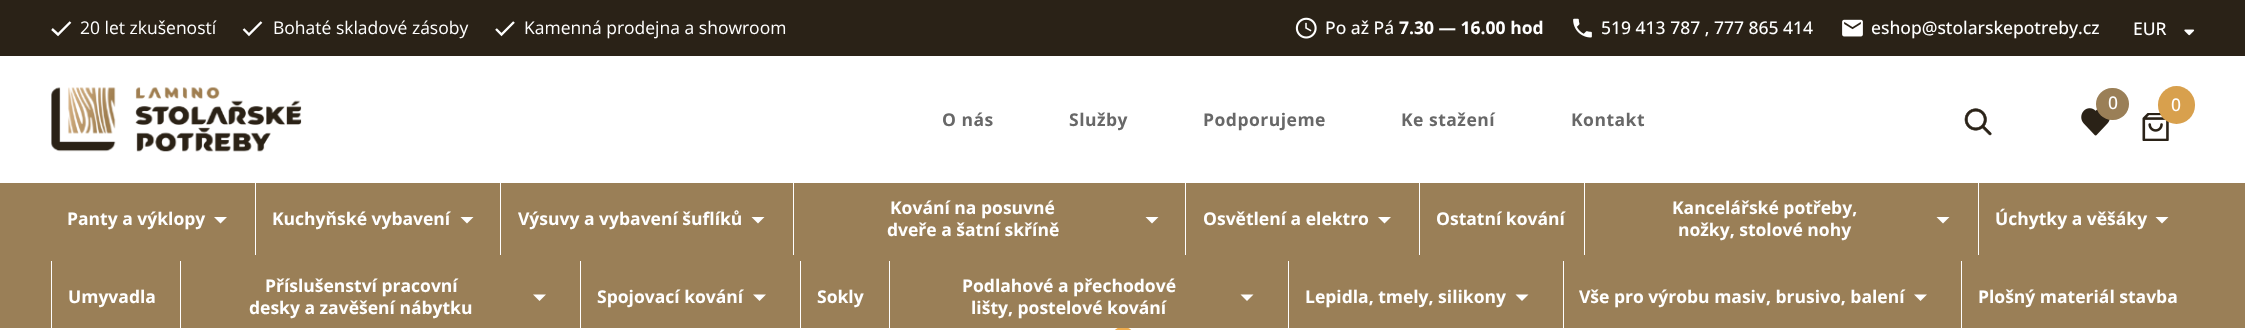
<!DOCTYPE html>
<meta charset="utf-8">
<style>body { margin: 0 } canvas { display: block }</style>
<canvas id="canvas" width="2245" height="330"></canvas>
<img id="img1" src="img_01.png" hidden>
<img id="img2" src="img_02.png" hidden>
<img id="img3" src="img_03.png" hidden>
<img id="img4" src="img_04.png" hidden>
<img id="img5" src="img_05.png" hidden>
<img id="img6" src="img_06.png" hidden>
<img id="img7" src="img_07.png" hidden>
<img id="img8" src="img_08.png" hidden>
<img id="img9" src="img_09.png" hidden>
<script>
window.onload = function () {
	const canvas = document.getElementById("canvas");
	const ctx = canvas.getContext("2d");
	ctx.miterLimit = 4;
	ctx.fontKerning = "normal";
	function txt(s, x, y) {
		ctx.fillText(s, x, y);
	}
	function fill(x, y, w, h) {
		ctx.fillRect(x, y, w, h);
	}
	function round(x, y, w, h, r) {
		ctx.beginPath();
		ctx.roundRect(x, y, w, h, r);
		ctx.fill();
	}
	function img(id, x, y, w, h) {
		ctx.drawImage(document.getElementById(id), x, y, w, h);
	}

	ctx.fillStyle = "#FFFFFF";
	fill(0, 0, 2245, 330);
	ctx.fillStyle = "#2A2217";
	fill(0, 0, 2245, 56);
	ctx.beginPath();
	ctx.moveTo(70.5, 22);
	ctx.lineTo(58, 34.5);
	ctx.lineTo(52, 29);
	ctx.strokeStyle = "#FFFFFF";
	ctx.lineWidth = 2.4;
	ctx.stroke();
	ctx.beginPath();
	ctx.moveTo(261.5, 22);
	ctx.lineTo(249, 34.5);
	ctx.lineTo(243.5, 29);
	ctx.stroke();
	ctx.beginPath();
	ctx.moveTo(514, 22);
	ctx.lineTo(501.5, 34.5);
	ctx.lineTo(496, 29);
	ctx.stroke();
	img("img1", 1295, 17, 22, 22);
	img("img2", 1573, 18, 19, 20);
	img("img3", 1842, 19, 21, 18);
	img("img4", 2184, 29, 11, 7);
	img("img5", 51, 87, 251, 65);
	img("img6", 2081, 108, 29, 28);
	ctx.fillStyle = "#9A7F57";
	round(2096, 88, 33, 32, 16);
	img("img7", 2142, 113, 27, 28);
	ctx.fillStyle = "#D8A04D";
	round(2158, 86, 37, 38, 18.5);
	img("img8", 1964, 108, 28, 28);
	ctx.fillStyle = "#9A7F57";
	fill(0, 183, 2245, 145);
	ctx.fillStyle = "#FFFFFF";
	ctx.beginPath();
	ctx.moveTo(214, 217);
	ctx.lineTo(220.5, 223.5);
	ctx.lineTo(227, 217);
	ctx.closePath();
	ctx.fill();
	fill(255, 183, 1, 72);
	ctx.beginPath();
	ctx.moveTo(460.5, 217);
	ctx.lineTo(467, 223.5);
	ctx.lineTo(473.5, 217);
	ctx.closePath();
	ctx.fill();
	fill(500, 183, 1, 72);
	ctx.beginPath();
	ctx.moveTo(751.5, 217);
	ctx.lineTo(758, 223.5);
	ctx.lineTo(764.5, 217);
	ctx.closePath();
	ctx.fill();
	fill(793, 183, 1, 72);
	ctx.beginPath();
	ctx.moveTo(1145.5, 217);
	ctx.lineTo(1152, 223.5);
	ctx.lineTo(1158.5, 217);
	ctx.closePath();
	ctx.fill();
	fill(1185, 183, 1, 72);
	ctx.beginPath();
	ctx.moveTo(1378, 217);
	ctx.lineTo(1384.5, 223.5);
	ctx.lineTo(1391, 217);
	ctx.closePath();
	ctx.fill();
	fill(1419, 183, 1, 72);
	fill(1584, 183, 1, 72);
	ctx.beginPath();
	ctx.moveTo(1936.5, 217);
	ctx.lineTo(1943, 223.5);
	ctx.lineTo(1949.5, 217);
	ctx.closePath();
	ctx.fill();
	fill(1978, 183, 1, 72);
	ctx.beginPath();
	ctx.moveTo(2155.5, 217);
	ctx.lineTo(2162, 223.5);
	ctx.lineTo(2168.5, 217);
	ctx.closePath();
	ctx.fill();
	fill(51, 261, 1, 69);
	fill(180, 261, 1, 69);
	ctx.beginPath();
	ctx.moveTo(533, 294.5);
	ctx.lineTo(539.5, 301);
	ctx.lineTo(546, 294.5);
	ctx.closePath();
	ctx.fill();
	fill(580, 261, 1, 69);
	ctx.beginPath();
	ctx.moveTo(753, 294.5);
	ctx.lineTo(759.5, 301);
	ctx.lineTo(766, 294.5);
	ctx.closePath();
	ctx.fill();
	fill(800, 261, 1, 69);
	fill(889, 261, 1, 69);
	ctx.beginPath();
	ctx.moveTo(1240.5, 294.5);
	ctx.lineTo(1247, 301);
	ctx.lineTo(1253.5, 294.5);
	ctx.closePath();
	ctx.fill();
	fill(1288, 261, 1, 69);
	ctx.beginPath();
	ctx.moveTo(1515.5, 294.5);
	ctx.lineTo(1522, 301);
	ctx.lineTo(1528.5, 294.5);
	ctx.closePath();
	ctx.fill();
	fill(1563, 261, 1, 69);
	ctx.beginPath();
	ctx.moveTo(1914, 294.5);
	ctx.lineTo(1920.5, 301);
	ctx.lineTo(1927, 294.5);
	ctx.closePath();
	ctx.fill();
	fill(1961, 261, 1, 69);
	img("img9", 1115, 328, 16, 2);
	ctx.font = "17.5px Open Sans";
	txt("20 let zkušeností", 80, 34);
	txt("Bohaté skladové zásoby", 273, 34);
	txt("Kamenná prodejna a showroom", 524, 34);
	ctx.font = "500 17.5px Open Sans";
	txt("Po až Pá", 1325, 34);
	ctx.font = "bold 17.5px Open Sans";
	txt("7.30 — 16.00 hod", 1399, 34);
	ctx.font = "500 17.5px Open Sans";
	txt("519 413 787 , 777 865 414", 1601, 34);
	txt("eshop@stolarskepotreby.cz", 1871, 34);
	txt("EUR", 2133, 35);
	txt("0", 2108, 109);
	txt("0", 2171, 111);
	ctx.letterSpacing = "0.5px";
	ctx.font = "bold 17.5px Open Sans";
	ctx.fillStyle = "#686868";
	txt("O nás", 942, 126);
	txt("Služby", 1069, 126);
	txt("Podporujeme", 1203, 126);
	txt("Ke stažení", 1401, 126);
	txt("Kontakt", 1571, 126);
	ctx.letterSpacing = "0px";
	ctx.fillStyle = "#FFFFFF";
	txt("Panty a výklopy", 67, 225);
	txt("Kuchyňské vybavení", 272, 225);
	txt("Výsuvy a vybavení šuflíků", 518, 225);
	txt("Kování na posuvné", 890, 214);
	txt("dveře a šatní skříně", 887, 236);
	txt("Osvětlení a elektro", 1203, 225);
	txt("Ostatní kování", 1436, 225);
	txt("Kancelářské potřeby,", 1672, 214);
	txt("nožky, stolové nohy", 1678, 236);
	txt("Úchytky a věšáky", 1995, 225);
	txt("Umyvadla", 68, 303);
	txt("Příslušenství pracovní", 265, 292);
	txt("desky a zavěšení nábytku", 249, 314);
	txt("Spojovací kování", 597, 303);
	txt("Sokly", 817, 303);
	txt("Podlahové a přechodové", 962, 292);
	txt("lišty, postelové kování", 971, 314);
	txt("Lepidla, tmely, silikony", 1305, 303);
	txt("Vše pro výrobu masiv, brusivo, balení", 1579, 303);
	txt("Plošný materiál stavba", 1978, 303);
};
</script>
